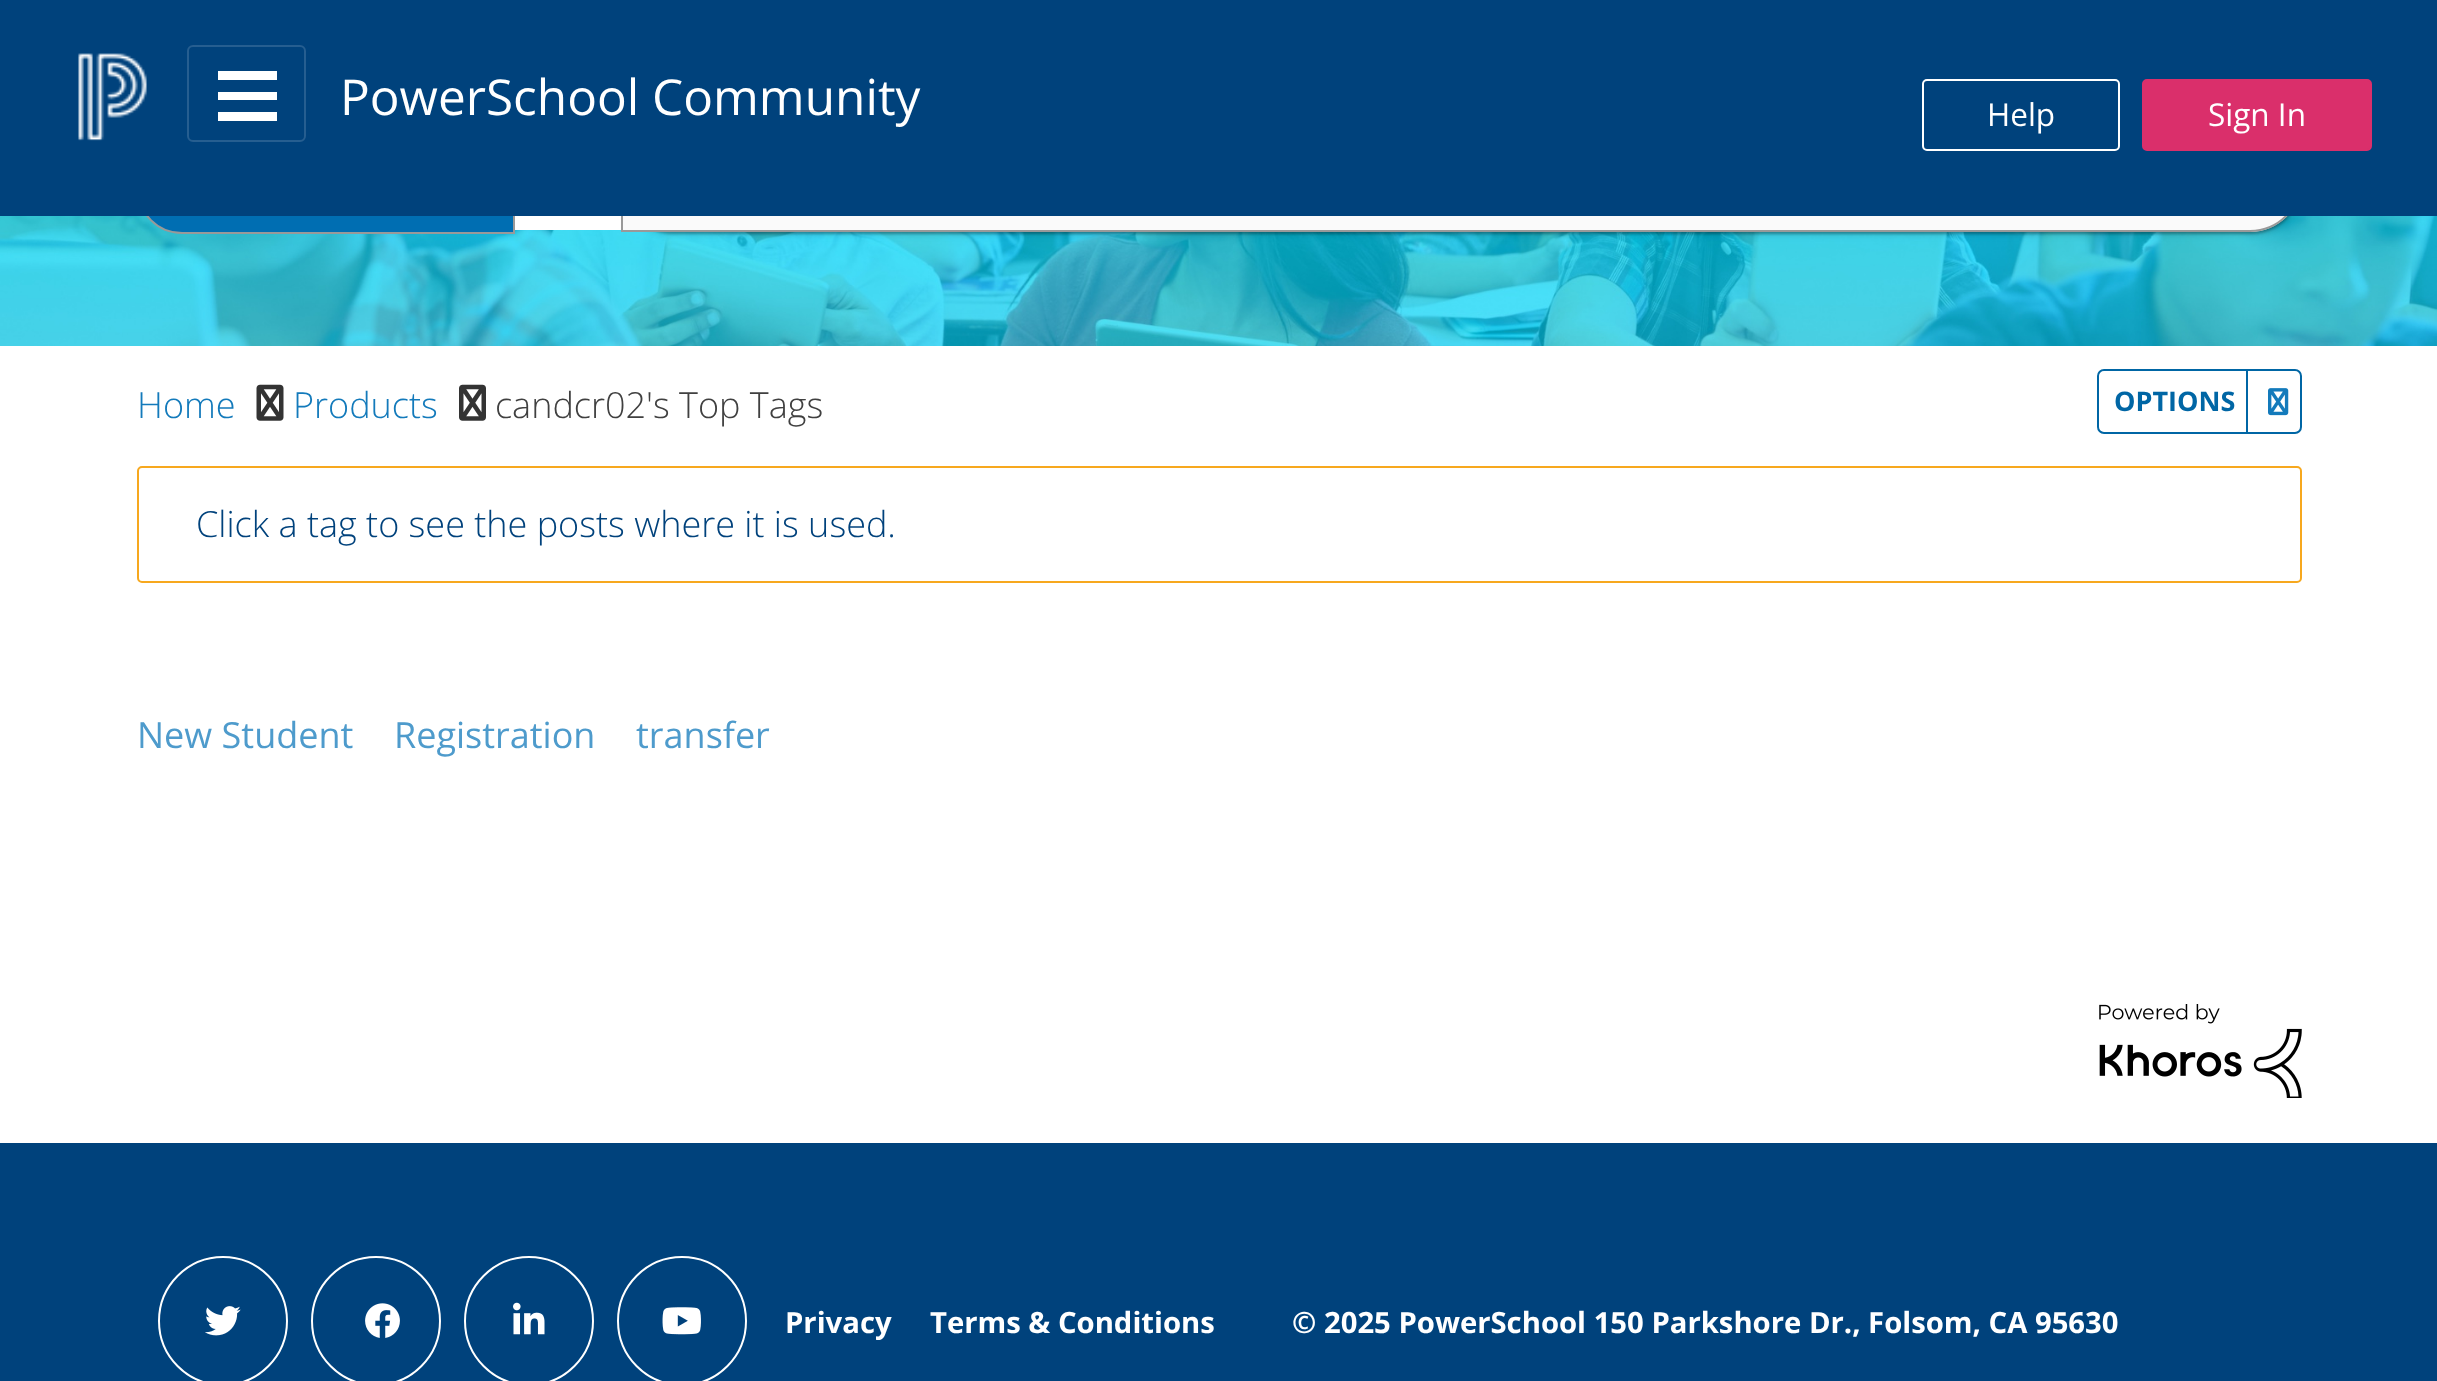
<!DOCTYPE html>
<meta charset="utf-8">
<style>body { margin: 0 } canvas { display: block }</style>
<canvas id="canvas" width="2437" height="1381"></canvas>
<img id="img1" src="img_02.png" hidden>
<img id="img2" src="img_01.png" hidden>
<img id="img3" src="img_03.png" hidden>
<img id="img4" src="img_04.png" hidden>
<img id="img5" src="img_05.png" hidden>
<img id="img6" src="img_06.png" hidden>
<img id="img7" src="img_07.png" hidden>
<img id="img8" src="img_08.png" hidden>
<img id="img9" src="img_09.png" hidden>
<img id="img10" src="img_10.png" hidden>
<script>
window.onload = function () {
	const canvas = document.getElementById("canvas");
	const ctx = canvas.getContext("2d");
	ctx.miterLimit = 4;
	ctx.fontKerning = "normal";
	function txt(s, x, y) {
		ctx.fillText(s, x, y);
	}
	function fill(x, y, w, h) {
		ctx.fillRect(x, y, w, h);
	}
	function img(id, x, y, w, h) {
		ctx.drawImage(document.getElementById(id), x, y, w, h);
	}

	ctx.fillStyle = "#FFFFFF";
	fill(0, 0, 2437, 1381);
	img("img1", 0, 216, 2437, 130);
	ctx.beginPath();
	ctx.roundRect(513, 128, 1771, 102, [0, 45, 45, 0]);
	ctx.fill();
	ctx.fillStyle = "#FAFAFA";
	ctx.beginPath();
	ctx.roundRect(621, 128, 1681, 104, [0, 52, 52, 0]);
	ctx.fill();
	ctx.save();
	ctx.beginPath();
	ctx.moveTo(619, 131);
	ctx.lineTo(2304, 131);
	ctx.lineTo(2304, 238);
	ctx.lineTo(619, 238);
	ctx.closePath();
	ctx.moveTo(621, 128);
	ctx.lineTo(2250, 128);
	ctx.bezierCurveTo(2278.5, 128, 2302, 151.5, 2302, 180);
	ctx.bezierCurveTo(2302, 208.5, 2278.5, 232, 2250, 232);
	ctx.lineTo(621, 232);
	ctx.closePath();
	ctx.clip("evenodd");
	ctx.fillStyle = "rgba(0, 0, 0, 0.12)";
	ctx.filter = "blur(1px)";
	ctx.beginPath();
	ctx.roundRect(623, 135, 1677, 99, 49.5);
	ctx.fill();
	ctx.filter = "none";
	ctx.restore();
	ctx.save();
	ctx.beginPath();
	ctx.moveTo(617, 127);
	ctx.lineTo(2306, 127);
	ctx.lineTo(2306, 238);
	ctx.lineTo(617, 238);
	ctx.closePath();
	ctx.moveTo(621, 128);
	ctx.lineTo(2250, 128);
	ctx.bezierCurveTo(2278.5, 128, 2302, 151.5, 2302, 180);
	ctx.bezierCurveTo(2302, 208.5, 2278.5, 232, 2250, 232);
	ctx.lineTo(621, 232);
	ctx.closePath();
	ctx.clip("evenodd");
	ctx.fillStyle = "rgba(0, 0, 0, 0.14)";
	ctx.filter = "blur(1px)";
	ctx.beginPath();
	ctx.roundRect(621, 131, 1681, 103, 51.5);
	ctx.fill();
	ctx.filter = "none";
	ctx.restore();
	ctx.save();
	ctx.beginPath();
	ctx.moveTo(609, 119);
	ctx.lineTo(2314, 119);
	ctx.lineTo(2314, 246);
	ctx.lineTo(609, 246);
	ctx.closePath();
	ctx.moveTo(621, 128);
	ctx.lineTo(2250, 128);
	ctx.bezierCurveTo(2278.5, 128, 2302, 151.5, 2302, 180);
	ctx.bezierCurveTo(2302, 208.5, 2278.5, 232, 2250, 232);
	ctx.lineTo(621, 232);
	ctx.closePath();
	ctx.clip("evenodd");
	ctx.fillStyle = "rgba(0, 0, 0, 0.2)";
	ctx.filter = "blur(3.5px)";
	ctx.beginPath();
	ctx.roundRect(621, 131, 1681, 103, 51.5);
	ctx.fill();
	ctx.filter = "none";
	ctx.restore();
	ctx.beginPath();
	ctx.roundRect(622, 129, 1679, 102, [0, 51, 51, 0]);
	ctx.strokeStyle = "#999999";
	ctx.lineWidth = 2;
	ctx.stroke();
	ctx.fillStyle = "#006EB2";
	ctx.beginPath();
	ctx.roundRect(138, 129, 376, 104, [44, 0, 0, 44]);
	ctx.fill();
	ctx.stroke();
	ctx.fillStyle = "#00427C";
	fill(0, 0, 2437, 216);
	img("img2", 78, 53, 69, 88);
	ctx.beginPath();
	ctx.roundRect(188, 46, 117, 95, 5);
	ctx.strokeStyle = "#265E90";
	ctx.stroke();
	ctx.fillStyle = "#FFFFFF";
	ctx.beginPath();
	ctx.moveTo(218, 71);
	ctx.lineTo(277, 71);
	ctx.lineTo(277, 80);
	ctx.lineTo(218, 80);
	ctx.closePath();
	ctx.moveTo(218, 92);
	ctx.lineTo(277, 92);
	ctx.lineTo(277, 100);
	ctx.lineTo(218, 100);
	ctx.closePath();
	ctx.moveTo(218, 112);
	ctx.lineTo(277, 112);
	ctx.lineTo(277, 121);
	ctx.lineTo(218, 121);
	ctx.closePath();
	ctx.fill("evenodd");
	ctx.beginPath();
	ctx.roundRect(1923, 80, 196, 70, 4);
	ctx.strokeStyle = "#FFFFFF";
	ctx.stroke();
	ctx.fillStyle = "#DA2F6B";
	ctx.beginPath();
	ctx.roundRect(2143, 80, 228, 70, 4);
	ctx.fill();
	ctx.strokeStyle = "#DA2F6B";
	ctx.stroke();
	img("img3", 256, 384, 28, 37);
	img("img4", 459, 384, 27, 37);
	ctx.beginPath();
	ctx.roundRect(2098, 370, 203, 63, 6);
	ctx.strokeStyle = "#0066A5";
	ctx.stroke();
	ctx.fillStyle = "#0066A5";
	fill(2246, 371, 2, 61);
	img("img5", 2268, 388, 21, 28);
	ctx.beginPath();
	ctx.roundRect(138, 467, 2163, 115, 4);
	ctx.strokeStyle = "#F7A81E";
	ctx.stroke();
	img("img6", 2099, 1004, 203, 94);
	ctx.fillStyle = "#00427C";
	fill(0, 1143, 2437, 238);
	ctx.beginPath();
	ctx.arc(223, 1321, 64, 0, Math.PI * 2);
	ctx.strokeStyle = "#FFFFFF";
	ctx.stroke();
	img("img7", 205, 1306, 36, 30);
	ctx.beginPath();
	ctx.arc(376, 1321, 64, 0, Math.PI * 2);
	ctx.stroke();
	img("img8", 365, 1303, 35, 35);
	ctx.beginPath();
	ctx.arc(529, 1321, 64, 0, Math.PI * 2);
	ctx.stroke();
	img("img9", 513, 1302, 32, 33);
	ctx.beginPath();
	ctx.arc(682, 1321, 64, 0, Math.PI * 2);
	ctx.stroke();
	img("img10", 662, 1307, 39, 28);
	ctx.font = "49.5px Open Sans";
	ctx.fillStyle = "#FFFFFF";
	txt("PowerSchool Community", 340, 115);
	ctx.font = "31.5px Open Sans";
	txt("Help", 1987, 126);
	txt("Sign In", 2208, 126);
	ctx.font = "300 36px Open Sans";
	ctx.fillStyle = "#137ABB";
	txt("Home", 137, 418);
	txt("Products", 293, 418);
	ctx.fillStyle = "#404040";
	txt("candcr02's Top Tags", 495, 418);
	ctx.font = "bold 27px Open Sans";
	ctx.fillStyle = "#0066A5";
	txt("OPTIONS", 2114, 411);
	ctx.font = "300 36px Open Sans";
	ctx.fillStyle = "#00427C";
	txt("Click a tag to see the posts where it is used.", 196, 537);
	ctx.font = "36px Open Sans";
	ctx.fillStyle = "#4E9BCC";
	txt("New Student", 137, 748);
	txt("Registration", 394, 748);
	txt("transfer", 636, 748);
	ctx.font = "bold 29.25px Open Sans";
	ctx.fillStyle = "#FFFFFF";
	txt("Privacy", 785, 1333);
	txt("Terms & Conditions", 930, 1333);
	txt("© 2025 PowerSchool 150 Parkshore Dr., Folsom, CA 95630", 1292, 1333);
};
</script>
